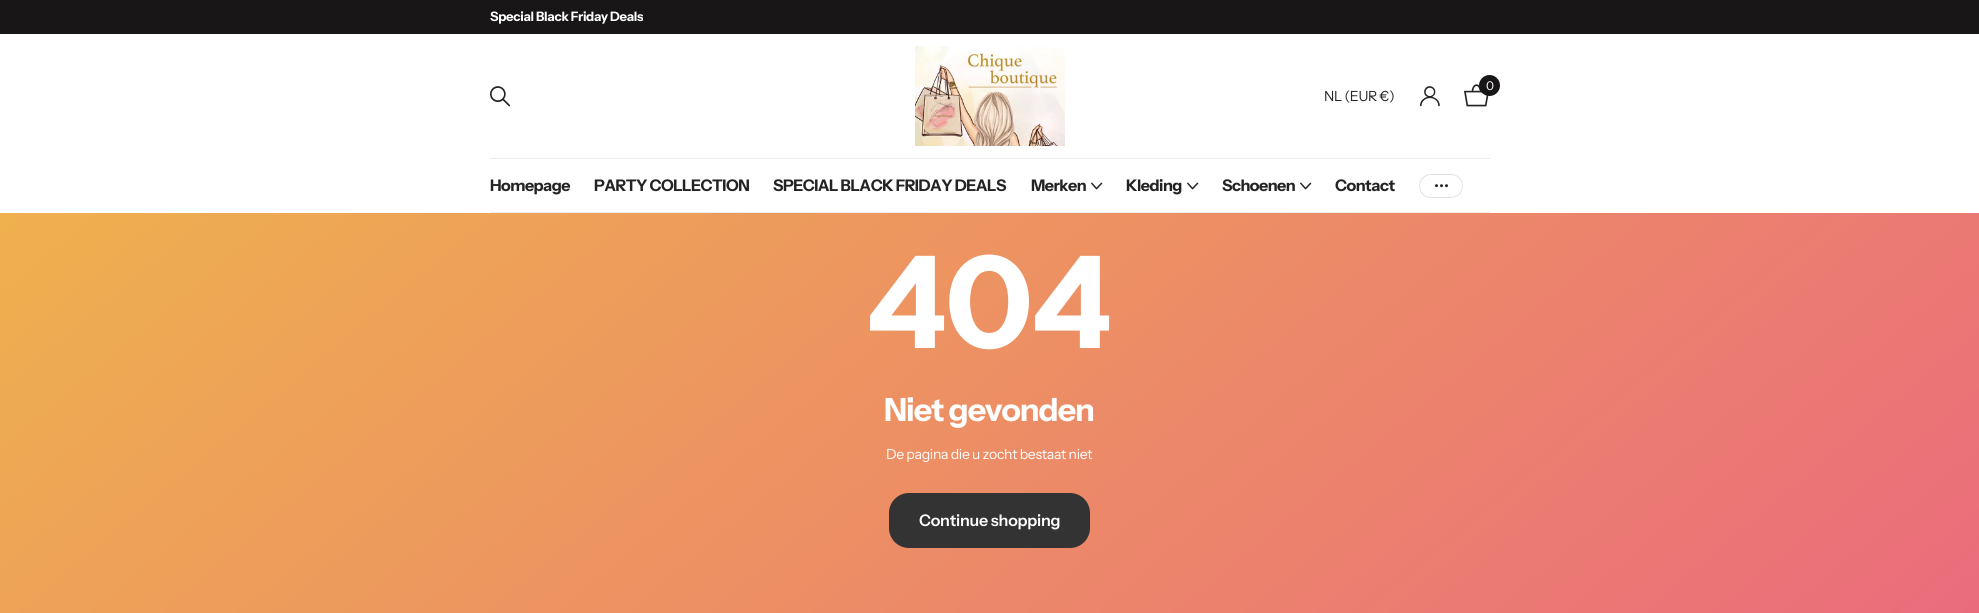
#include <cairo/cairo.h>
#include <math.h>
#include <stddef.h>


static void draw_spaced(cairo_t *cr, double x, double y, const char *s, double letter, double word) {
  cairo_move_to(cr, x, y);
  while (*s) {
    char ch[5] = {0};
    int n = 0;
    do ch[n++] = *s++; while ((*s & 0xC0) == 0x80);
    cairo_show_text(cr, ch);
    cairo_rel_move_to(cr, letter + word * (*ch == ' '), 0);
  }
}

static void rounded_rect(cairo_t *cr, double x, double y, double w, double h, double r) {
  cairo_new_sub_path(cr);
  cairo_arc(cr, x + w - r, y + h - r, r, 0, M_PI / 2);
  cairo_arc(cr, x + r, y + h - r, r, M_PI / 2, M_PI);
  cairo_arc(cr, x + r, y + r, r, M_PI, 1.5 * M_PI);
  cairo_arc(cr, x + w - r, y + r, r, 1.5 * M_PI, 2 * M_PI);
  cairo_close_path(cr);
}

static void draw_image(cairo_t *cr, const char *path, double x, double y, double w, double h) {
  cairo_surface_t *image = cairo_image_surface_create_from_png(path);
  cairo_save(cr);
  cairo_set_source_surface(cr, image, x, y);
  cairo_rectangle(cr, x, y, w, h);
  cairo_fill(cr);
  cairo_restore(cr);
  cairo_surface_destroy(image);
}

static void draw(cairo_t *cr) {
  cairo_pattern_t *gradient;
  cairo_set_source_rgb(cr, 1, 1, 1);
  cairo_paint(cr);
  cairo_set_source_rgb(cr, 24 / 255.0, 22 / 255.0, 22 / 255.0);
  cairo_rectangle(cr, 0, 0, 1979, 34);
  cairo_fill(cr);
  draw_image(cr, "images/1.png", 490, 86, 20, 21);
  draw_image(cr, "images/2.png", 915, 46, 150, 100);
  draw_image(cr, "images/3.png", 1420, 86, 20, 21);
  draw_image(cr, "images/4.png", 1464, 84, 25, 23);
  cairo_arc(cr, 1489.5, 85.5, 10.5, 0, 2 * M_PI);
  cairo_fill(cr);
  cairo_set_source_rgb(cr, 237 / 255.0, 237 / 255.0, 237 / 255.0);
  cairo_rectangle(cr, 490, 158, 1000, 1);
  cairo_fill(cr);
  cairo_rectangle(cr, 490, 212, 1000, 1);
  cairo_fill(cr);
  draw_image(cr, "images/5.png", 1091, 182, 12, 8);
  draw_image(cr, "images/5.png", 1187, 182, 12, 8);
  draw_image(cr, "images/5.png", 1300, 182, 12, 8);
  rounded_rect(cr, 1419.5, 174.5, 43, 23, 11.5);
  cairo_set_source_rgb(cr, 226 / 255.0, 226 / 255.0, 226 / 255.0);
  cairo_set_line_width(cr, 1);
  cairo_stroke(cr);
  draw_image(cr, "images/6.png", 1435, 184, 13, 4);
  gradient = cairo_pattern_create_linear(1803, 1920, 176, -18);
  cairo_pattern_add_color_stop_rgba(gradient, 0.04, 232 / 255.0, 74 / 255.0, 147 / 255.0, 1);
  cairo_pattern_add_color_stop_rgba(gradient, 1, 239 / 255.0, 179 / 255.0, 76 / 255.0, 1);
  cairo_set_source(cr, gradient);
  cairo_pattern_destroy(gradient);
  cairo_rectangle(cr, 0, 213, 1979, 400);
  cairo_fill(cr);
  cairo_set_source_rgb(cr, 51 / 255.0, 51 / 255.0, 51 / 255.0);
  rounded_rect(cr, 889, 493, 201, 55, 20);
  cairo_fill(cr);
  cairo_save(cr);
  cairo_rectangle(cr, 490, 6, 153, 23);
  cairo_clip(cr);
  cairo_select_font_face(cr, "Instrument Sans", CAIRO_FONT_SLANT_NORMAL, CAIRO_FONT_WEIGHT_BOLD);
  cairo_set_font_size(cr, 13);
  cairo_set_source_rgb(cr, 1, 1, 1);
  draw_spaced(cr, 490, 21, "Special Black Friday Deals", -0.3, 0);
  cairo_restore(cr);
  cairo_select_font_face(cr, "Instrument Sans", CAIRO_FONT_SLANT_NORMAL, CAIRO_FONT_WEIGHT_NORMAL);
  cairo_set_font_size(cr, 14);
  cairo_set_source_rgb(cr, 35 / 255.0, 35 / 255.0, 35 / 255.0);
  draw_spaced(cr, 1324, 101, "NL (EUR €)", -0.3, 0);
  cairo_set_font_size(cr, 12);
  cairo_set_source_rgb(cr, 1, 1, 1);
  cairo_move_to(cr, 1486, 90);
  cairo_show_text(cr, "0");
  cairo_select_font_face(cr, "Instrument Sans", CAIRO_FONT_SLANT_NORMAL, CAIRO_FONT_WEIGHT_BOLD);
  cairo_set_font_size(cr, 16);
  cairo_set_source_rgb(cr, 35 / 255.0, 35 / 255.0, 35 / 255.0);
  draw_spaced(cr, 490, 191, "Homepage", -0.5, 0);
  draw_spaced(cr, 594, 191, "PARTY COLLECTION", -0.5, 0);
  draw_spaced(cr, 773, 191, "SPECIAL BLACK FRIDAY DEALS", -0.5, 0);
  draw_spaced(cr, 1031, 191, "Merken", -0.5, 0);
  draw_spaced(cr, 1126, 191, "Kleding", -0.5, 0);
  draw_spaced(cr, 1222, 191, "Schoenen", -0.5, 0);
  draw_spaced(cr, 1335, 191, "Contact", -0.5, 0);
  cairo_set_font_size(cr, 128);
  cairo_set_source_rgb(cr, 1, 1, 1);
  draw_spaced(cr, 867, 348, "404", -1, 0);
  cairo_set_font_size(cr, 32);
  draw_spaced(cr, 884, 421, "Niet gevonden", -1, 0);
  cairo_select_font_face(cr, "Instrument Sans", CAIRO_FONT_SLANT_NORMAL, CAIRO_FONT_WEIGHT_NORMAL);
  cairo_set_font_size(cr, 14);
  draw_spaced(cr, 886, 459, "De pagina die u zocht bestaat niet", -0.3, 0);
  cairo_select_font_face(cr, "Instrument Sans SemiBold", CAIRO_FONT_SLANT_NORMAL, CAIRO_FONT_WEIGHT_NORMAL);
  cairo_set_font_size(cr, 16);
  draw_spaced(cr, 919, 526, "Continue shopping", -0.2, 0);
}

int main(void) {
  cairo_surface_t *surface = cairo_image_surface_create(CAIRO_FORMAT_RGB24, 1979, 613);
  cairo_t *cr = cairo_create(surface);
  cairo_font_options_t *options = cairo_font_options_create();
  cairo_font_options_set_hint_metrics(options, CAIRO_HINT_METRICS_OFF);
  cairo_font_options_set_hint_style(options, CAIRO_HINT_STYLE_NONE);
  cairo_set_font_options(cr, options);
  cairo_set_miter_limit(cr, 4);
  draw(cr);
  cairo_surface_write_to_png(surface, "out.png");
  cairo_font_options_destroy(options);
  cairo_destroy(cr);
  cairo_surface_destroy(surface);
  return 0;
}
